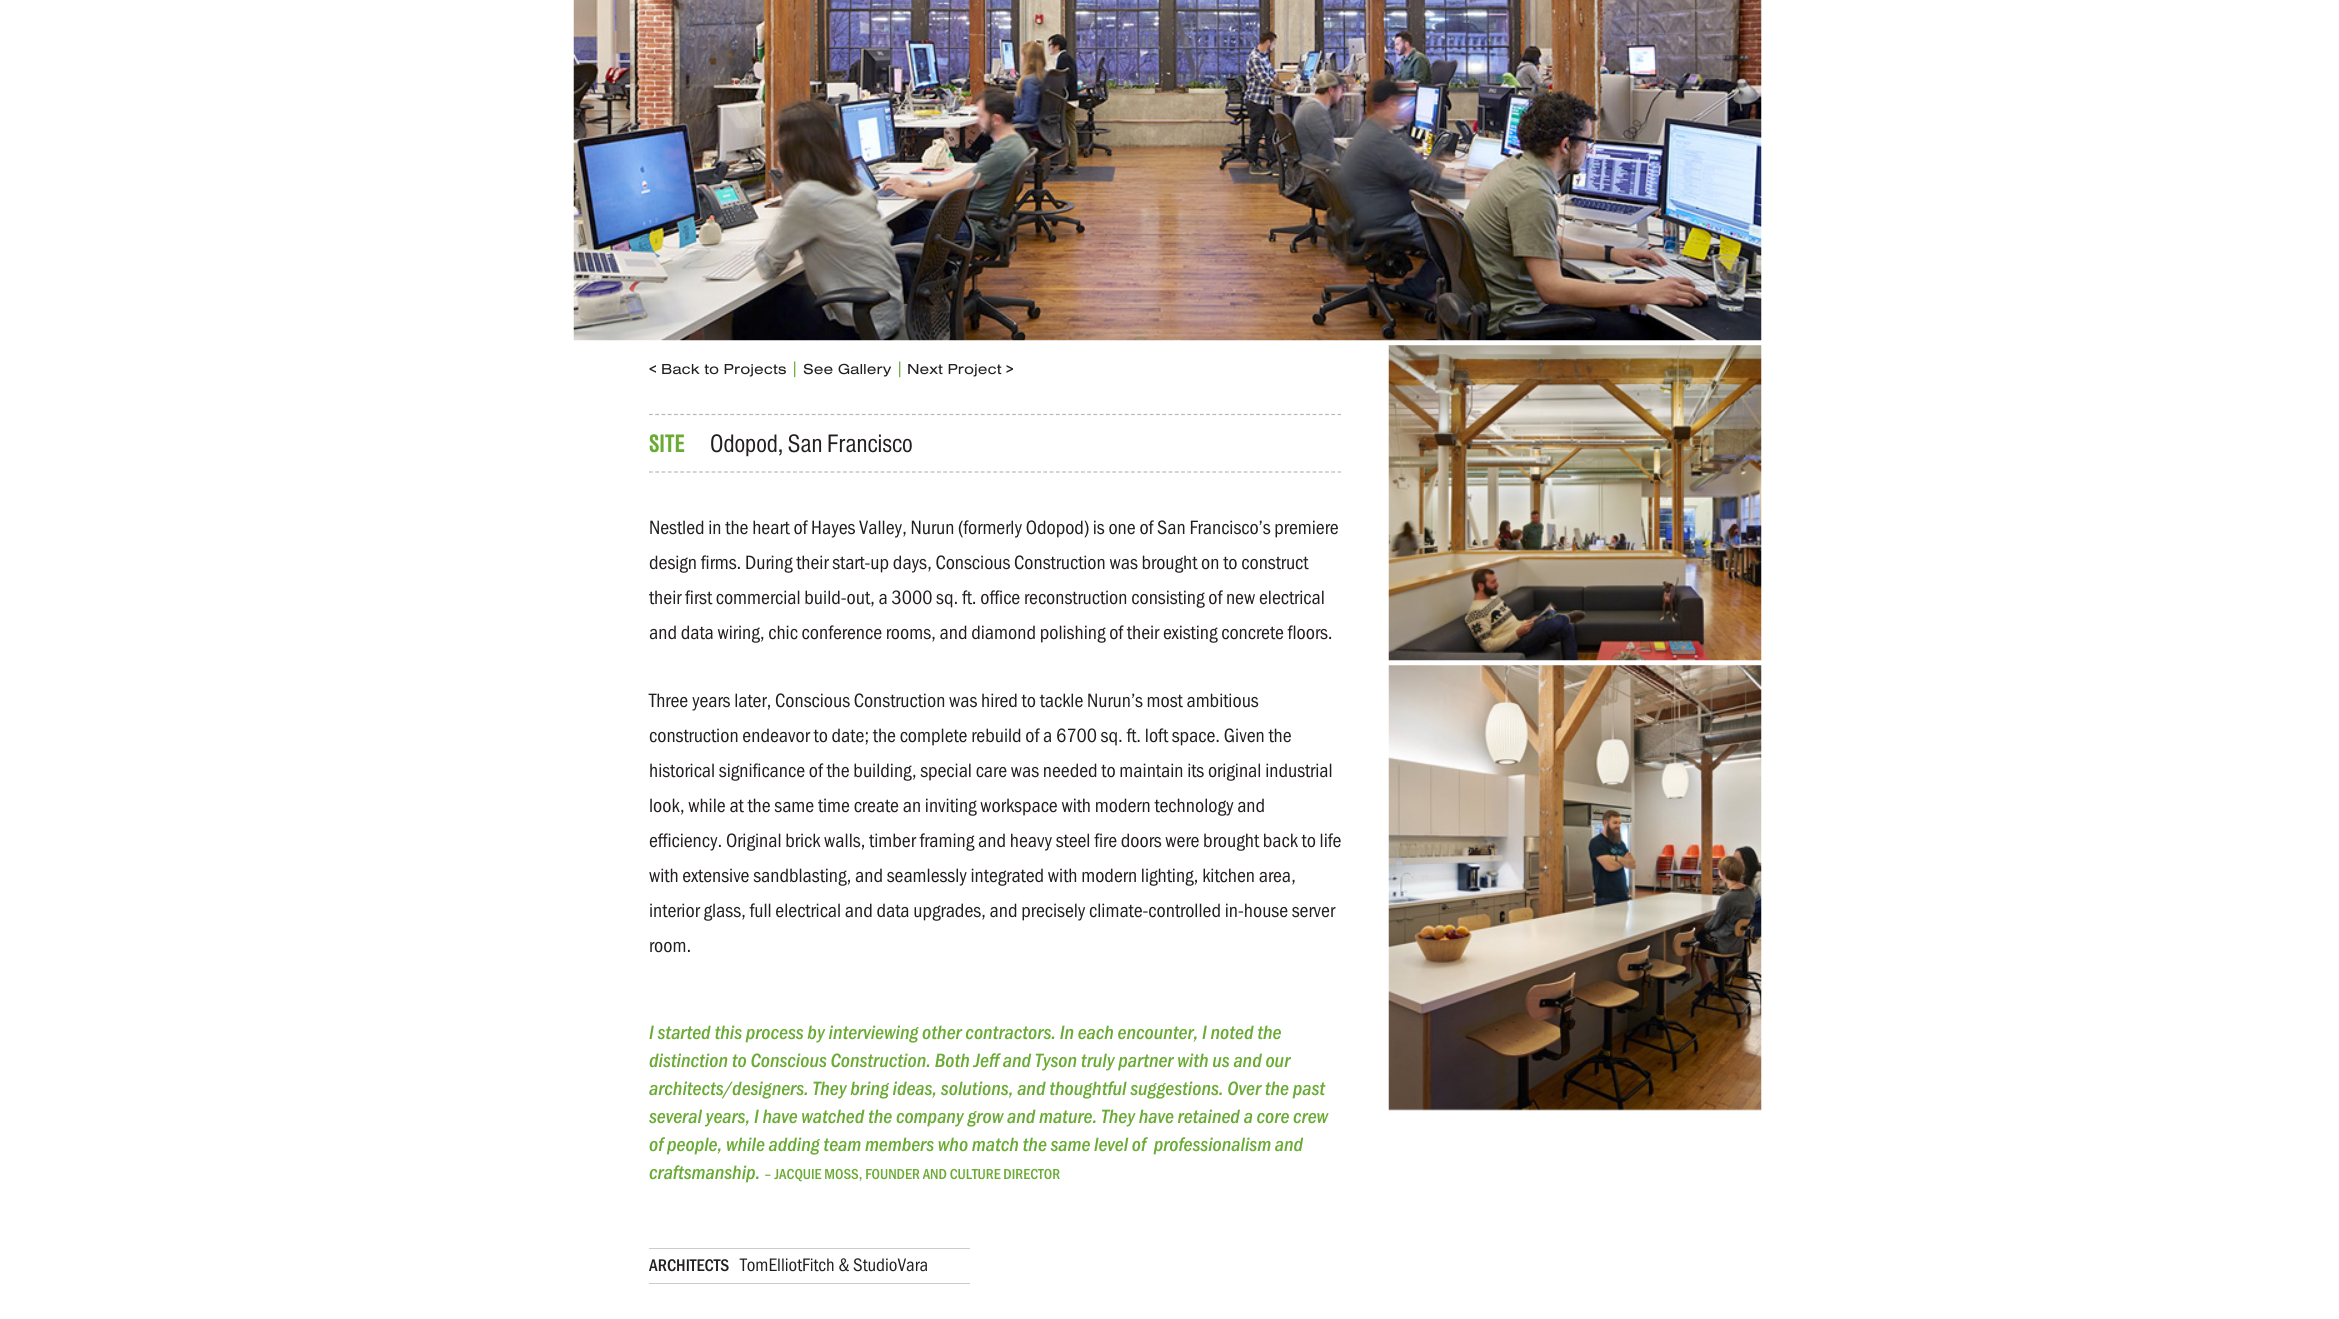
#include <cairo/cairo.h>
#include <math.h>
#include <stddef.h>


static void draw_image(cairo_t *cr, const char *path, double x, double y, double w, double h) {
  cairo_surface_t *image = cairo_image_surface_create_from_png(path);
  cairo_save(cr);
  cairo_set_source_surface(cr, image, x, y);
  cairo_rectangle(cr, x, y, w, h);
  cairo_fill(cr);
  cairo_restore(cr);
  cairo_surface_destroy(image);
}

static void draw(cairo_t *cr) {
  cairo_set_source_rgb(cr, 1, 1, 1);
  cairo_paint(cr);
  draw_image(cr, "images/1.png", 573, 0, 1189, 341);
  cairo_new_path(cr);
  cairo_move_to(cr, 649, 414.5);
  cairo_line_to(cr, 1341, 414.5);
  cairo_set_source_rgb(cr, 183 / 255.0, 184 / 255.0, 180 / 255.0);
  cairo_set_line_width(cr, 1.2);
  cairo_set_dash(cr, (double[]){3.75, 2.51}, 2, 0);
  cairo_stroke(cr);
  cairo_new_path(cr);
  cairo_move_to(cr, 649, 472);
  cairo_line_to(cr, 1341, 472);
  cairo_stroke(cr);
  cairo_set_source_rgb(cr, 204 / 255.0, 204 / 255.0, 204 / 255.0);
  cairo_rectangle(cr, 649, 1248, 321, 1);
  cairo_fill(cr);
  cairo_rectangle(cr, 649, 1283, 321, 1);
  cairo_fill(cr);
  draw_image(cr, "images/2.png", 1388, 345, 374, 316);
  draw_image(cr, "images/3.png", 1388, 665, 374, 446);
  cairo_select_font_face(cr, "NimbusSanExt", CAIRO_FONT_SLANT_NORMAL, CAIRO_FONT_WEIGHT_NORMAL);
  cairo_set_font_size(cr, 15);
  cairo_set_source_rgb(cr, 35 / 255.0, 31 / 255.0, 32 / 255.0);
  cairo_move_to(cr, 649, 374);
  cairo_show_text(cr, "< Back to Projects");
  cairo_select_font_face(cr, "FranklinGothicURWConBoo", CAIRO_FONT_SLANT_NORMAL, CAIRO_FONT_WEIGHT_NORMAL);
  cairo_set_font_size(cr, 18.75);
  cairo_set_source_rgb(cr, 106 / 255.0, 171 / 255.0, 53 / 255.0);
  cairo_move_to(cr, 790, 374);
  cairo_show_text(cr, "|");
  cairo_select_font_face(cr, "NimbusSanExt", CAIRO_FONT_SLANT_NORMAL, CAIRO_FONT_WEIGHT_NORMAL);
  cairo_set_font_size(cr, 15);
  cairo_set_source_rgb(cr, 35 / 255.0, 31 / 255.0, 32 / 255.0);
  cairo_move_to(cr, 803, 374);
  cairo_show_text(cr, "See Gallery");
  cairo_select_font_face(cr, "FranklinGothicURWConBoo", CAIRO_FONT_SLANT_NORMAL, CAIRO_FONT_WEIGHT_NORMAL);
  cairo_set_font_size(cr, 18.75);
  cairo_set_source_rgb(cr, 106 / 255.0, 171 / 255.0, 53 / 255.0);
  cairo_move_to(cr, 895, 374);
  cairo_show_text(cr, "|");
  cairo_select_font_face(cr, "NimbusSanExt", CAIRO_FONT_SLANT_NORMAL, CAIRO_FONT_WEIGHT_NORMAL);
  cairo_set_font_size(cr, 15);
  cairo_set_source_rgb(cr, 35 / 255.0, 31 / 255.0, 32 / 255.0);
  cairo_move_to(cr, 907, 374);
  cairo_show_text(cr, "Next Project >");
  cairo_select_font_face(cr, "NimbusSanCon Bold", CAIRO_FONT_SLANT_NORMAL, CAIRO_FONT_WEIGHT_BOLD);
  cairo_set_font_size(cr, 26.25);
  cairo_set_source_rgb(cr, 106 / 255.0, 171 / 255.0, 53 / 255.0);
  cairo_move_to(cr, 649, 452);
  cairo_show_text(cr, "SITE");
  cairo_select_font_face(cr, "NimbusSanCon", CAIRO_FONT_SLANT_NORMAL, CAIRO_FONT_WEIGHT_NORMAL);
  cairo_set_source_rgb(cr, 35 / 255.0, 31 / 255.0, 32 / 255.0);
  cairo_move_to(cr, 710, 452);
  cairo_show_text(cr, "Odopod, San Francisco");
  cairo_select_font_face(cr, "FranklinGothicURWConBoo", CAIRO_FONT_SLANT_NORMAL, CAIRO_FONT_WEIGHT_NORMAL);
  cairo_set_font_size(cr, 20);
  cairo_move_to(cr, 649, 534);
  cairo_show_text(cr, "Nestled in the heart of Hayes Valley, Nurun (formerly Odopod) is one of San Francisco’s premiere");
  cairo_move_to(cr, 649, 569);
  cairo_show_text(cr, "design firms. During their start-up days, Conscious Construction was brought on to construct");
  cairo_move_to(cr, 649, 604);
  cairo_show_text(cr, "their first commercial build-out, a 3000 sq. ft. office reconstruction consisting of new electrical");
  cairo_move_to(cr, 649, 639);
  cairo_show_text(cr, "and data wiring, chic conference rooms, and diamond polishing of their existing concrete floors.");
  cairo_move_to(cr, 649, 707);
  cairo_show_text(cr, "Three years later, Conscious Construction was hired to tackle Nurun’s most ambitious");
  cairo_move_to(cr, 649, 742);
  cairo_show_text(cr, "construction endeavor to date; the complete rebuild of a 6700 sq. ft. loft space. Given the");
  cairo_move_to(cr, 649, 777);
  cairo_show_text(cr, "historical significance of the building, special care was needed to maintain its original industrial");
  cairo_move_to(cr, 649, 812);
  cairo_show_text(cr, "look, while at the same time create an inviting workspace with modern technology and");
  cairo_move_to(cr, 649, 847);
  cairo_show_text(cr, "efficiency. Original brick walls, timber framing and heavy steel fire doors were brought back to life");
  cairo_move_to(cr, 649, 882);
  cairo_show_text(cr, "with extensive sandblasting, and seamlessly integrated with modern lighting, kitchen area,");
  cairo_move_to(cr, 649, 917);
  cairo_show_text(cr, "interior glass, full electrical and data upgrades, and precisely climate-controlled in-house server");
  cairo_move_to(cr, 649, 952);
  cairo_show_text(cr, "room.");
  cairo_select_font_face(cr, "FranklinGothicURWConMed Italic", CAIRO_FONT_SLANT_ITALIC, CAIRO_FONT_WEIGHT_NORMAL);
  cairo_set_source_rgb(cr, 106 / 255.0, 171 / 255.0, 53 / 255.0);
  cairo_move_to(cr, 649, 1039);
  cairo_show_text(cr, "I started this process by interviewing other contractors. In each encounter, I noted the");
  cairo_move_to(cr, 649, 1067);
  cairo_show_text(cr, "distinction to Conscious Construction. Both Jeff and Tyson truly partner with us and our");
  cairo_move_to(cr, 649, 1095);
  cairo_show_text(cr, "architects/designers. They bring ideas, solutions, and thoughtful suggestions. Over the past");
  cairo_move_to(cr, 649, 1123);
  cairo_show_text(cr, "several years, I have watched the company grow and mature. They have retained a core crew");
  cairo_move_to(cr, 649, 1151);
  cairo_show_text(cr, "of people, while adding team members who match the same level of  professionalism and");
  cairo_move_to(cr, 649, 1179);
  cairo_show_text(cr, "craftsmanship.");
  cairo_select_font_face(cr, "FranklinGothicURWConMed", CAIRO_FONT_SLANT_NORMAL, CAIRO_FONT_WEIGHT_NORMAL);
  cairo_set_font_size(cr, 15);
  cairo_move_to(cr, 764, 1179);
  cairo_show_text(cr, "– JACQUIE MOSS, FOUNDER AND CULTURE DIRECTOR");
  cairo_set_font_size(cr, 17.5);
  cairo_set_source_rgb(cr, 35 / 255.0, 31 / 255.0, 32 / 255.0);
  cairo_move_to(cr, 649, 1271);
  cairo_show_text(cr, "ARCHITECTS");
  cairo_select_font_face(cr, "FranklinGothicURWConBoo", CAIRO_FONT_SLANT_NORMAL, CAIRO_FONT_WEIGHT_NORMAL);
  cairo_set_font_size(cr, 18.75);
  cairo_move_to(cr, 740, 1271);
  cairo_show_text(cr, "TomElliotFitch & StudioVara");
}

int main(void) {
  cairo_surface_t *surface = cairo_image_surface_create(CAIRO_FORMAT_RGB24, 2339, 1319);
  cairo_t *cr = cairo_create(surface);
  cairo_font_options_t *options = cairo_font_options_create();
  cairo_font_options_set_hint_metrics(options, CAIRO_HINT_METRICS_OFF);
  cairo_font_options_set_hint_style(options, CAIRO_HINT_STYLE_NONE);
  cairo_set_font_options(cr, options);
  cairo_set_miter_limit(cr, 4);
  draw(cr);
  cairo_surface_write_to_png(surface, "out.png");
  cairo_font_options_destroy(options);
  cairo_destroy(cr);
  cairo_surface_destroy(surface);
  return 0;
}
